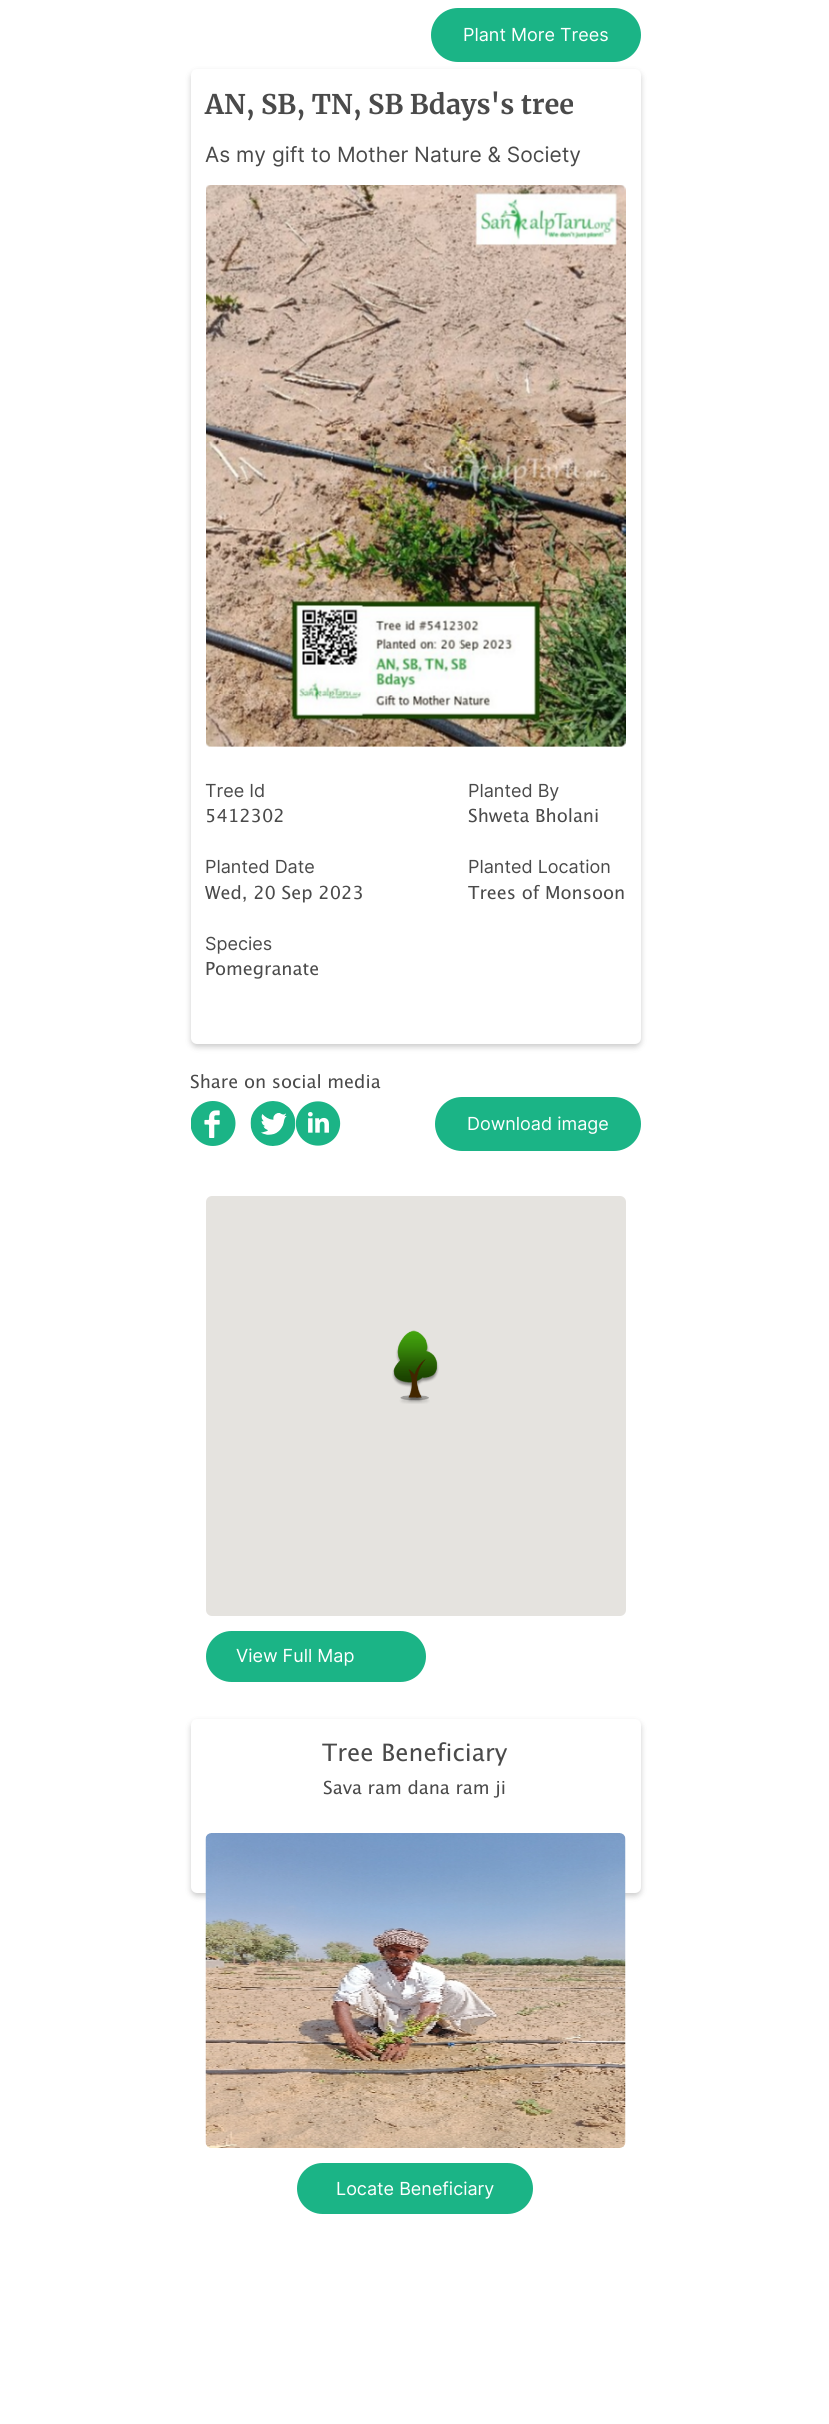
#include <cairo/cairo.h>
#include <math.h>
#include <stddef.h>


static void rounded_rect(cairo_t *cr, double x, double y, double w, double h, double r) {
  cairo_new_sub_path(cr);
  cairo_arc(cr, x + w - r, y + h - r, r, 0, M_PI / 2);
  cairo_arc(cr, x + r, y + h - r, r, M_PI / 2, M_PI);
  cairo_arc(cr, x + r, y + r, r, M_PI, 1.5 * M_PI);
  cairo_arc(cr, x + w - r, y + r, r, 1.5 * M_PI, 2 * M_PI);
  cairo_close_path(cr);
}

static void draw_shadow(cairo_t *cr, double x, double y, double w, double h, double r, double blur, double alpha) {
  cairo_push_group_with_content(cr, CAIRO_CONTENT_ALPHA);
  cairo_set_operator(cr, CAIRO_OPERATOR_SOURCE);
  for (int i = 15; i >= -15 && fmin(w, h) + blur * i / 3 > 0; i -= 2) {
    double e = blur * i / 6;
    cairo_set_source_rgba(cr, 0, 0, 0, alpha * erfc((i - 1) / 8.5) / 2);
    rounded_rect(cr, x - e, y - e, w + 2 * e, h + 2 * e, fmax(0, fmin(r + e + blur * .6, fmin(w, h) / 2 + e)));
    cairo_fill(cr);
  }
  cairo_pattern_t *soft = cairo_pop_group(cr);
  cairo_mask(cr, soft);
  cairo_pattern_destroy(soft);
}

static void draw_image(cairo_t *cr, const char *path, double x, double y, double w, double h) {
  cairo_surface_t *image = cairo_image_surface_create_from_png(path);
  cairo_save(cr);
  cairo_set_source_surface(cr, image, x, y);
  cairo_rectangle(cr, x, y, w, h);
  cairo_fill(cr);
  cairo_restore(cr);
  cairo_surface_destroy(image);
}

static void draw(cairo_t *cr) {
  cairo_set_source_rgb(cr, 1, 1, 1);
  cairo_paint(cr);
  cairo_set_source_rgb(cr, 27 / 255.0, 180 / 255.0, 134 / 255.0);
  rounded_rect(cr, 432, 9, 208, 52, 26);
  cairo_fill_preserve(cr);
  cairo_stroke(cr);
  cairo_set_source_rgb(cr, 0, 0, 0);
  draw_shadow(cr, 191, 72, 450, 975, 6, 3, 0.2);
  cairo_set_source_rgb(cr, 1, 1, 1);
  rounded_rect(cr, 191, 69, 450, 975, 6);
  cairo_fill(cr);
  draw_image(cr, "images/1.png", 206, 185, 420, 562);
  draw_image(cr, "images/2.png", 191, 1101, 45, 45);
  draw_image(cr, "images/3.png", 250, 1101, 46, 45);
  draw_image(cr, "images/4.png", 296, 1101, 45, 45);
  cairo_set_source_rgb(cr, 27 / 255.0, 180 / 255.0, 134 / 255.0);
  rounded_rect(cr, 436, 1098, 204, 52, 26);
  cairo_fill_preserve(cr);
  cairo_stroke(cr);
  cairo_set_source_rgb(cr, 229 / 255.0, 227 / 255.0, 223 / 255.0);
  rounded_rect(cr, 206, 1196, 420, 420, 6);
  cairo_fill(cr);
  draw_image(cr, "images/5.png", 392, 1330, 47, 74);
  cairo_set_source_rgb(cr, 27 / 255.0, 180 / 255.0, 134 / 255.0);
  rounded_rect(cr, 207, 1632, 218, 49, 24.5);
  cairo_fill_preserve(cr);
  cairo_stroke(cr);
  cairo_set_source_rgb(cr, 0, 0, 0);
  draw_shadow(cr, 191, 1722, 450, 174, 6, 3, 0.2);
  cairo_set_source_rgb(cr, 1, 1, 1);
  rounded_rect(cr, 191, 1719, 450, 174, 6);
  cairo_fill(cr);
  draw_image(cr, "images/6.png", 205, 1833, 421, 315);
  cairo_set_source_rgb(cr, 27 / 255.0, 180 / 255.0, 134 / 255.0);
  rounded_rect(cr, 298, 2164, 234, 49, 24.5);
  cairo_fill_preserve(cr);
  cairo_stroke(cr);
  cairo_select_font_face(cr, "Inter", CAIRO_FONT_SLANT_NORMAL, CAIRO_FONT_WEIGHT_NORMAL);
  cairo_set_font_size(cr, 18);
  cairo_set_source_rgb(cr, 1, 1, 1);
  cairo_move_to(cr, 463, 41);
  cairo_show_text(cr, "Plant More Trees");
  cairo_select_font_face(cr, "Merriweather", CAIRO_FONT_SLANT_NORMAL, CAIRO_FONT_WEIGHT_BOLD);
  cairo_set_font_size(cr, 27);
  cairo_set_source_rgb(cr, 74 / 255.0, 74 / 255.0, 74 / 255.0);
  cairo_move_to(cr, 205, 114);
  cairo_show_text(cr, "AN, SB, TN, SB Bdays's tree");
  cairo_select_font_face(cr, "Inter", CAIRO_FONT_SLANT_NORMAL, CAIRO_FONT_WEIGHT_NORMAL);
  cairo_set_font_size(cr, 21);
  cairo_move_to(cr, 205, 162);
  cairo_show_text(cr, "As my gift to Mother Nature & Society");
  cairo_set_font_size(cr, 18);
  cairo_move_to(cr, 205, 797);
  cairo_show_text(cr, "Tree Id");
  cairo_select_font_face(cr, "Lucida Grande", CAIRO_FONT_SLANT_NORMAL, CAIRO_FONT_WEIGHT_NORMAL);
  cairo_move_to(cr, 205, 822);
  cairo_show_text(cr, "5412302");
  cairo_select_font_face(cr, "Inter", CAIRO_FONT_SLANT_NORMAL, CAIRO_FONT_WEIGHT_NORMAL);
  cairo_move_to(cr, 205, 873);
  cairo_show_text(cr, "Planted Date");
  cairo_select_font_face(cr, "Lucida Grande", CAIRO_FONT_SLANT_NORMAL, CAIRO_FONT_WEIGHT_NORMAL);
  cairo_move_to(cr, 205, 899);
  cairo_show_text(cr, "Wed, 20 Sep 2023");
  cairo_select_font_face(cr, "Inter", CAIRO_FONT_SLANT_NORMAL, CAIRO_FONT_WEIGHT_NORMAL);
  cairo_move_to(cr, 205, 950);
  cairo_show_text(cr, "Species");
  cairo_select_font_face(cr, "Lucida Grande", CAIRO_FONT_SLANT_NORMAL, CAIRO_FONT_WEIGHT_NORMAL);
  cairo_move_to(cr, 205, 975);
  cairo_show_text(cr, "Pomegranate");
  cairo_select_font_face(cr, "Inter", CAIRO_FONT_SLANT_NORMAL, CAIRO_FONT_WEIGHT_NORMAL);
  cairo_move_to(cr, 468, 797);
  cairo_show_text(cr, "Planted By");
  cairo_select_font_face(cr, "Lucida Grande", CAIRO_FONT_SLANT_NORMAL, CAIRO_FONT_WEIGHT_NORMAL);
  cairo_move_to(cr, 468, 822);
  cairo_show_text(cr, "Shweta Bholani");
  cairo_select_font_face(cr, "Inter", CAIRO_FONT_SLANT_NORMAL, CAIRO_FONT_WEIGHT_NORMAL);
  cairo_move_to(cr, 468, 873);
  cairo_show_text(cr, "Planted Location");
  cairo_select_font_face(cr, "Lucida Grande", CAIRO_FONT_SLANT_NORMAL, CAIRO_FONT_WEIGHT_NORMAL);
  cairo_move_to(cr, 468, 899);
  cairo_show_text(cr, "Trees of Monsoon");
  cairo_move_to(cr, 190, 1088);
  cairo_show_text(cr, "Share on social media");
  cairo_select_font_face(cr, "Inter", CAIRO_FONT_SLANT_NORMAL, CAIRO_FONT_WEIGHT_NORMAL);
  cairo_set_source_rgb(cr, 1, 1, 1);
  cairo_move_to(cr, 467, 1130);
  cairo_show_text(cr, "Download image");
  cairo_move_to(cr, 236, 1662);
  cairo_show_text(cr, "View Full Map");
  cairo_select_font_face(cr, "Lucida Grande", CAIRO_FONT_SLANT_NORMAL, CAIRO_FONT_WEIGHT_NORMAL);
  cairo_set_font_size(cr, 24);
  cairo_set_source_rgb(cr, 74 / 255.0, 74 / 255.0, 74 / 255.0);
  cairo_move_to(cr, 322, 1761);
  cairo_show_text(cr, "Tree Beneficiary");
  cairo_set_font_size(cr, 18);
  cairo_move_to(cr, 323, 1794);
  cairo_show_text(cr, "Sava ram dana ram ji");
  cairo_select_font_face(cr, "Inter", CAIRO_FONT_SLANT_NORMAL, CAIRO_FONT_WEIGHT_NORMAL);
  cairo_set_source_rgb(cr, 1, 1, 1);
  cairo_move_to(cr, 336, 2195);
  cairo_show_text(cr, "Locate Beneficiary");
}

int main(void) {
  cairo_surface_t *surface = cairo_image_surface_create(CAIRO_FORMAT_RGB24, 829, 2424);
  cairo_t *cr = cairo_create(surface);
  cairo_font_options_t *options = cairo_font_options_create();
  cairo_font_options_set_hint_metrics(options, CAIRO_HINT_METRICS_OFF);
  cairo_font_options_set_hint_style(options, CAIRO_HINT_STYLE_NONE);
  cairo_set_font_options(cr, options);
  cairo_set_miter_limit(cr, 4);
  draw(cr);
  cairo_surface_write_to_png(surface, "out.png");
  cairo_font_options_destroy(options);
  cairo_destroy(cr);
  cairo_surface_destroy(surface);
  return 0;
}
